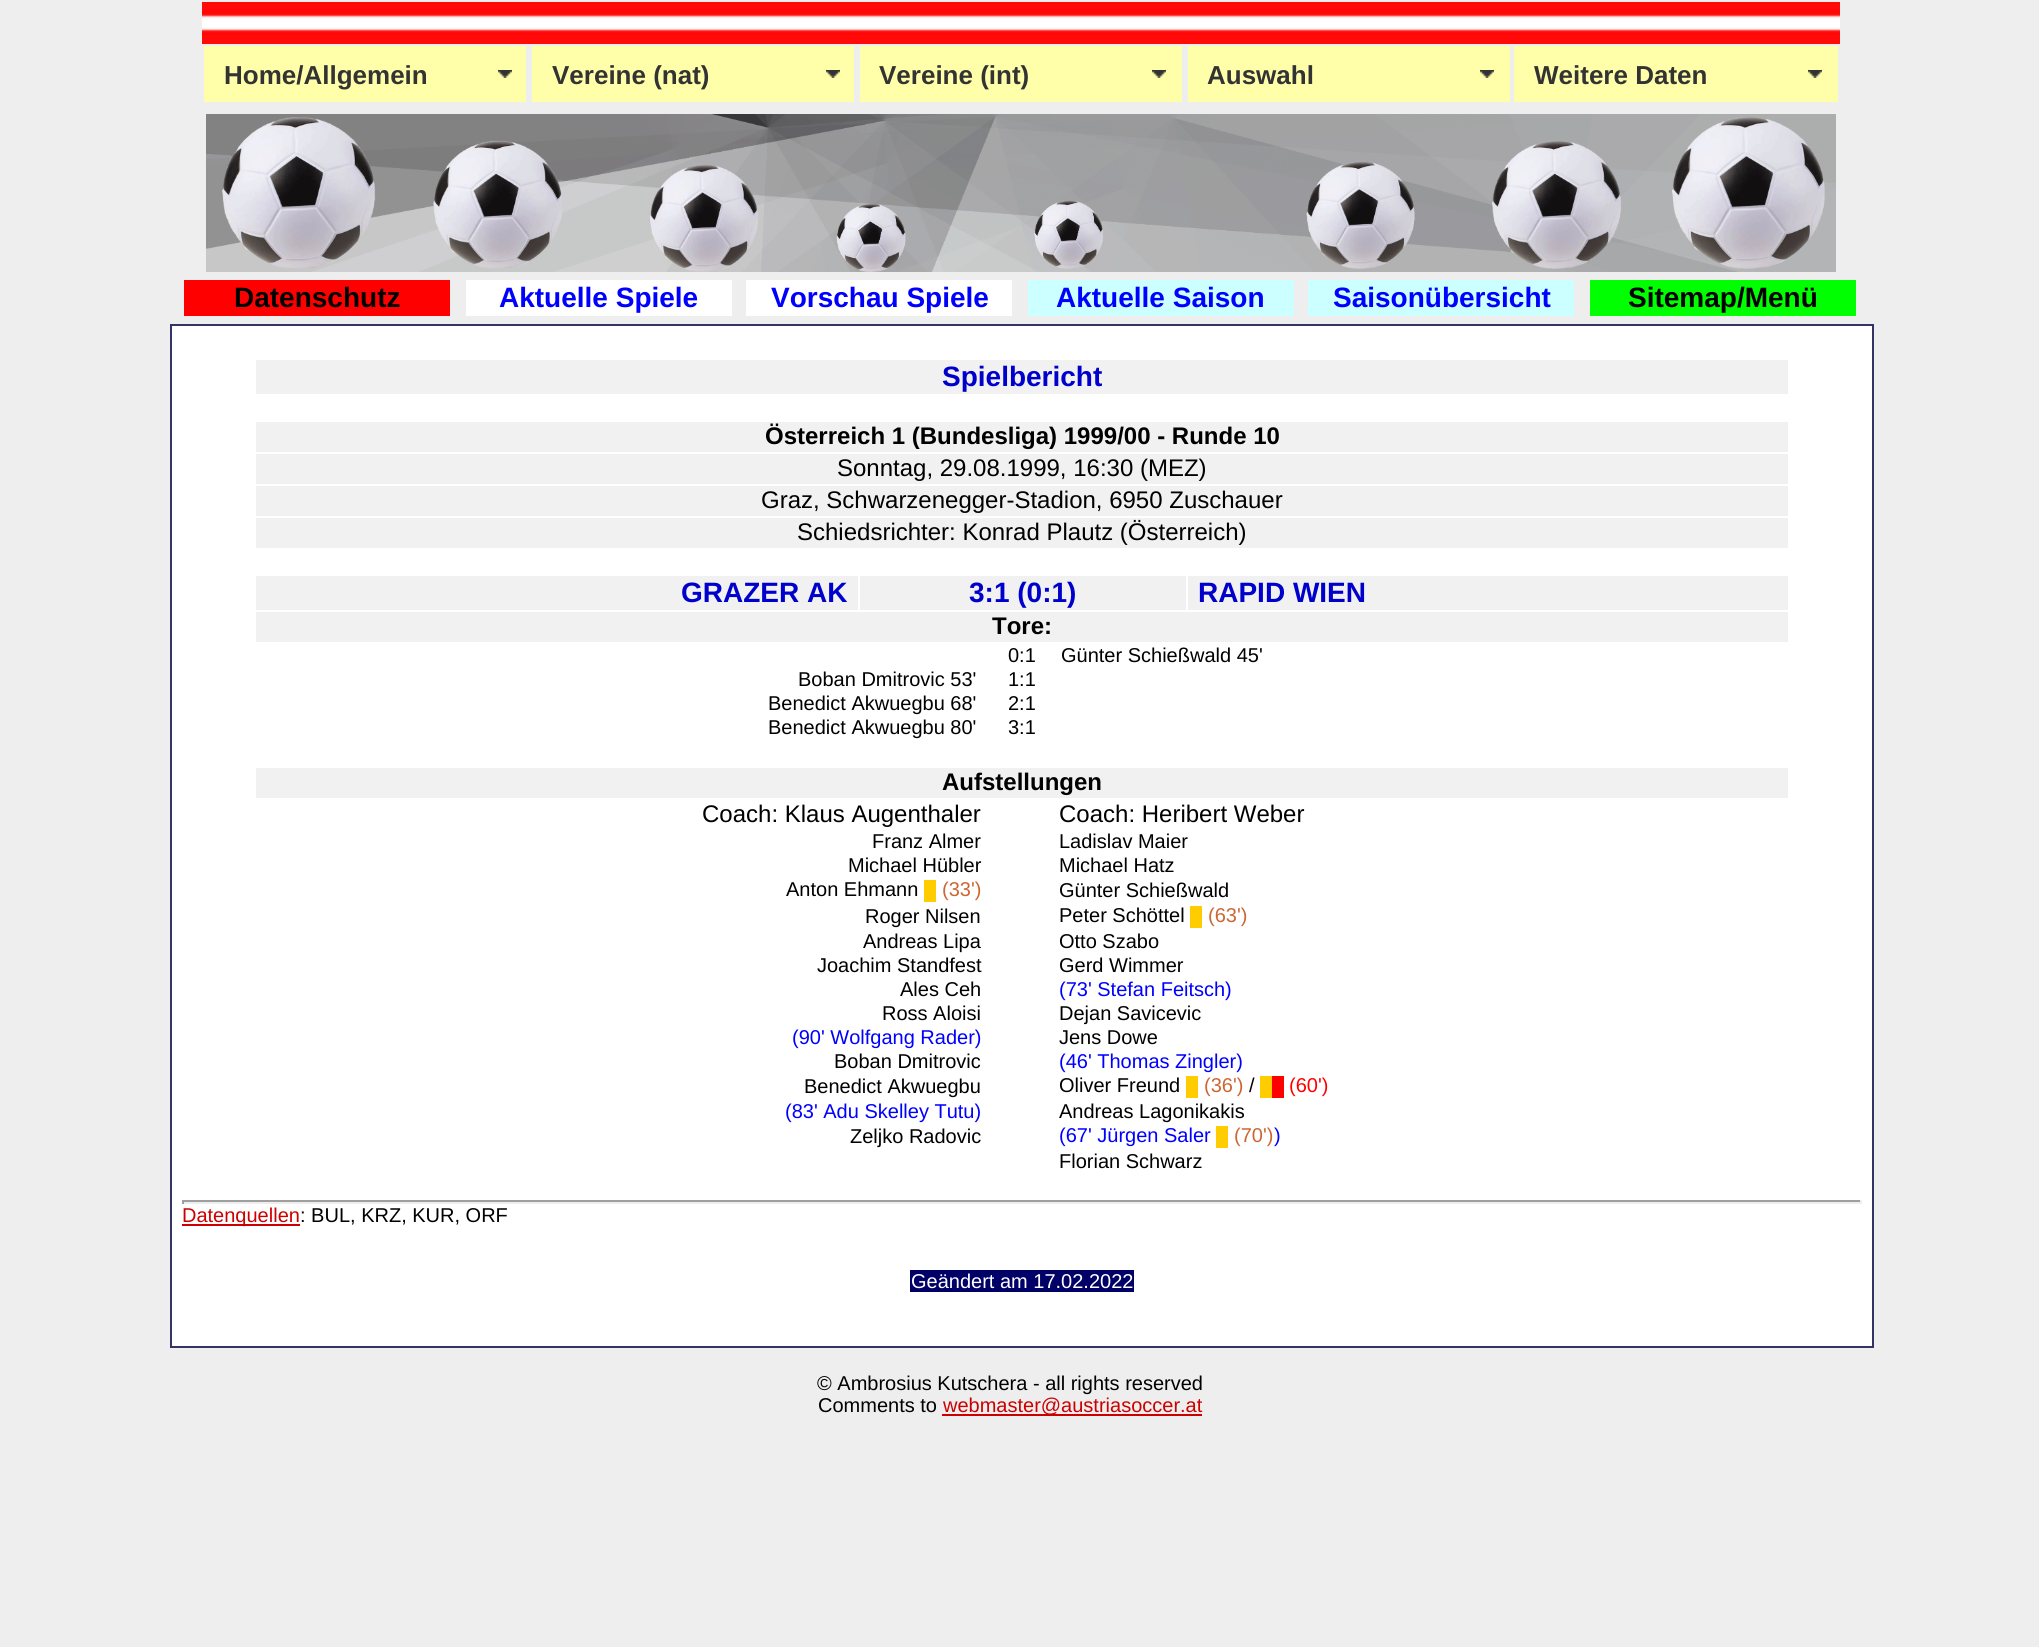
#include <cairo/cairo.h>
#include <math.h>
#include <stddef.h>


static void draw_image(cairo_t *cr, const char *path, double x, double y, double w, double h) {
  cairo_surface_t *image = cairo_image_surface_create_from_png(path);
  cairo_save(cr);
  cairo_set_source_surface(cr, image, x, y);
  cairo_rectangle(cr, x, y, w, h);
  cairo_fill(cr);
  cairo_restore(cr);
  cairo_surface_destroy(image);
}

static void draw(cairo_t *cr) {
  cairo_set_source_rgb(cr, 238 / 255.0, 238 / 255.0, 238 / 255.0);
  cairo_paint(cr);
  draw_image(cr, "images/1.png", 202, 2, 1638, 42);
  cairo_set_source_rgb(cr, 1, 1, 170 / 255.0);
  cairo_rectangle(cr, 204, 46, 322, 56);
  cairo_fill(cr);
  draw_image(cr, "images/2.png", 498, 70, 14, 8);
  cairo_rectangle(cr, 532, 46, 322, 56);
  cairo_fill(cr);
  draw_image(cr, "images/2.png", 826, 70, 14, 8);
  cairo_rectangle(cr, 860, 46, 322, 56);
  cairo_fill(cr);
  draw_image(cr, "images/2.png", 1152, 70, 14, 8);
  cairo_rectangle(cr, 1188, 46, 322, 56);
  cairo_fill(cr);
  draw_image(cr, "images/2.png", 1480, 70, 14, 8);
  cairo_rectangle(cr, 1514, 46, 324, 56);
  cairo_fill(cr);
  draw_image(cr, "images/2.png", 1808, 70, 14, 8);
  draw_image(cr, "images/3.png", 206, 114, 1630, 158);
  cairo_set_source_rgb(cr, 1, 0, 0);
  cairo_rectangle(cr, 184, 280, 266, 36);
  cairo_fill(cr);
  cairo_set_source_rgb(cr, 1, 1, 1);
  cairo_rectangle(cr, 466, 280, 266, 36);
  cairo_fill(cr);
  cairo_rectangle(cr, 746, 280, 266, 36);
  cairo_fill(cr);
  cairo_set_source_rgb(cr, 204 / 255.0, 1, 1);
  cairo_rectangle(cr, 1028, 280, 266, 36);
  cairo_fill(cr);
  cairo_rectangle(cr, 1308, 280, 266, 36);
  cairo_fill(cr);
  cairo_set_source_rgb(cr, 0, 1, 0);
  cairo_rectangle(cr, 1590, 280, 266, 36);
  cairo_fill(cr);
  cairo_set_source_rgb(cr, 1, 1, 1);
  cairo_rectangle(cr, 171, 325, 1702, 1022);
  cairo_fill_preserve(cr);
  cairo_set_source_rgb(cr, 51 / 255.0, 51 / 255.0, 102 / 255.0);
  cairo_stroke(cr);
  cairo_set_source_rgb(cr, 241 / 255.0, 241 / 255.0, 242 / 255.0);
  cairo_rectangle(cr, 256, 360, 1532, 34);
  cairo_fill(cr);
  cairo_rectangle(cr, 256, 422, 1532, 30);
  cairo_fill(cr);
  cairo_rectangle(cr, 256, 454, 1532, 30);
  cairo_fill(cr);
  cairo_rectangle(cr, 256, 486, 1532, 30);
  cairo_fill(cr);
  cairo_rectangle(cr, 256, 518, 1532, 30);
  cairo_fill(cr);
  cairo_rectangle(cr, 256, 576, 602, 34);
  cairo_fill(cr);
  cairo_rectangle(cr, 860, 576, 326, 34);
  cairo_fill(cr);
  cairo_rectangle(cr, 1188, 576, 600, 34);
  cairo_fill(cr);
  cairo_rectangle(cr, 256, 612, 1532, 30);
  cairo_fill(cr);
  cairo_rectangle(cr, 256, 768, 1532, 30);
  cairo_fill(cr);
  cairo_set_source_rgb(cr, 1, 204 / 255.0, 0);
  cairo_rectangle(cr, 924, 880, 12, 22);
  cairo_fill(cr);
  cairo_rectangle(cr, 1190, 906, 12, 22);
  cairo_fill(cr);
  cairo_rectangle(cr, 1186, 1076, 12, 22);
  cairo_fill(cr);
  cairo_rectangle(cr, 1260, 1076, 12, 22);
  cairo_fill(cr);
  cairo_set_source_rgb(cr, 1, 0, 0);
  cairo_rectangle(cr, 1272, 1076, 12, 22);
  cairo_fill(cr);
  cairo_set_source_rgb(cr, 1, 204 / 255.0, 0);
  cairo_rectangle(cr, 1216, 1126, 12, 22);
  cairo_fill(cr);
  cairo_set_source_rgb(cr, 159 / 255.0, 159 / 255.0, 159 / 255.0);
  cairo_rectangle(cr, 182, 1200, 1680, 2);
  cairo_fill(cr);
  cairo_set_source_rgb(cr, 238 / 255.0, 238 / 255.0, 238 / 255.0);
  cairo_rectangle(cr, 1860, 1200, 2, 4);
  cairo_fill(cr);
  cairo_rectangle(cr, 182, 1202, 1680, 2);
  cairo_fill(cr);
  cairo_set_source_rgb(cr, 159 / 255.0, 159 / 255.0, 159 / 255.0);
  cairo_rectangle(cr, 182, 1200, 2, 4);
  cairo_fill(cr);
  cairo_set_source_rgb(cr, 204 / 255.0, 0, 0);
  cairo_rectangle(cr, 182, 1224, 118, 2);
  cairo_fill(cr);
  cairo_set_source_rgb(cr, 0, 0, 102 / 255.0);
  cairo_rectangle(cr, 910, 1270, 224, 22);
  cairo_fill(cr);
  cairo_set_source_rgb(cr, 204 / 255.0, 0, 0);
  cairo_rectangle(cr, 942, 1414, 260, 2);
  cairo_fill(cr);
  cairo_select_font_face(cr, "Liberation Sans", CAIRO_FONT_SLANT_NORMAL, CAIRO_FONT_WEIGHT_BOLD);
  cairo_set_font_size(cr, 26);
  cairo_set_source_rgb(cr, 51 / 255.0, 51 / 255.0, 51 / 255.0);
  cairo_move_to(cr, 224, 84);
  cairo_show_text(cr, "Home/Allgemein");
  cairo_move_to(cr, 552, 84);
  cairo_show_text(cr, "Vereine (nat)");
  cairo_move_to(cr, 879, 84);
  cairo_show_text(cr, "Vereine (int)");
  cairo_move_to(cr, 1207, 84);
  cairo_show_text(cr, "Auswahl");
  cairo_move_to(cr, 1534, 84);
  cairo_show_text(cr, "Weitere Daten");
  cairo_set_font_size(cr, 28);
  cairo_set_source_rgb(cr, 0, 0, 0);
  cairo_move_to(cr, 234, 307);
  cairo_show_text(cr, "Datenschutz");
  cairo_set_source_rgb(cr, 0, 0, 1);
  cairo_move_to(cr, 499, 307);
  cairo_show_text(cr, "Aktuelle Spiele");
  cairo_move_to(cr, 771, 307);
  cairo_show_text(cr, "Vorschau Spiele");
  cairo_move_to(cr, 1056, 307);
  cairo_show_text(cr, "Aktuelle Saison");
  cairo_move_to(cr, 1333, 307);
  cairo_show_text(cr, "Saisonübersicht");
  cairo_set_source_rgb(cr, 0, 0, 0);
  cairo_move_to(cr, 1628, 307);
  cairo_show_text(cr, "Sitemap/Menü");
  cairo_set_source_rgb(cr, 0, 0, 204 / 255.0);
  cairo_move_to(cr, 942, 386);
  cairo_show_text(cr, "Spielbericht");
  cairo_set_font_size(cr, 24);
  cairo_set_source_rgb(cr, 0, 0, 0);
  cairo_move_to(cr, 765, 444);
  cairo_show_text(cr, "Österreich 1 (Bundesliga) 1999/00 - Runde 10");
  cairo_select_font_face(cr, "Liberation Sans", CAIRO_FONT_SLANT_NORMAL, CAIRO_FONT_WEIGHT_NORMAL);
  cairo_move_to(cr, 837, 476);
  cairo_show_text(cr, "Sonntag, 29.08.1999, 16:30 (MEZ)");
  cairo_move_to(cr, 761, 508);
  cairo_show_text(cr, "Graz, Schwarzenegger-Stadion, 6950 Zuschauer");
  cairo_move_to(cr, 797, 540);
  cairo_show_text(cr, "Schiedsrichter: Konrad Plautz (Österreich)");
  cairo_select_font_face(cr, "Liberation Sans", CAIRO_FONT_SLANT_NORMAL, CAIRO_FONT_WEIGHT_BOLD);
  cairo_set_font_size(cr, 28);
  cairo_set_source_rgb(cr, 0, 0, 204 / 255.0);
  cairo_move_to(cr, 681, 602);
  cairo_show_text(cr, "GRAZER AK");
  cairo_move_to(cr, 969, 602);
  cairo_show_text(cr, "3:1 (0:1)");
  cairo_move_to(cr, 1198, 602);
  cairo_show_text(cr, "RAPID WIEN");
  cairo_set_font_size(cr, 24);
  cairo_set_source_rgb(cr, 0, 0, 0);
  cairo_move_to(cr, 992, 634);
  cairo_show_text(cr, "Tore:");
  cairo_select_font_face(cr, "Liberation Sans", CAIRO_FONT_SLANT_NORMAL, CAIRO_FONT_WEIGHT_NORMAL);
  cairo_set_font_size(cr, 20);
  cairo_move_to(cr, 1008, 662);
  cairo_show_text(cr, "0:1");
  cairo_move_to(cr, 1061, 662);
  cairo_show_text(cr, "Günter Schießwald 45'");
  cairo_move_to(cr, 798, 686);
  cairo_show_text(cr, "Boban Dmitrovic 53'");
  cairo_move_to(cr, 1008, 686);
  cairo_show_text(cr, "1:1");
  cairo_move_to(cr, 768, 710);
  cairo_show_text(cr, "Benedict Akwuegbu 68'");
  cairo_move_to(cr, 1008, 710);
  cairo_show_text(cr, "2:1");
  cairo_move_to(cr, 768, 734);
  cairo_show_text(cr, "Benedict Akwuegbu 80'");
  cairo_move_to(cr, 1008, 734);
  cairo_show_text(cr, "3:1");
  cairo_select_font_face(cr, "Liberation Sans", CAIRO_FONT_SLANT_NORMAL, CAIRO_FONT_WEIGHT_BOLD);
  cairo_set_font_size(cr, 24);
  cairo_move_to(cr, 942, 790);
  cairo_show_text(cr, "Aufstellungen");
  cairo_select_font_face(cr, "Liberation Sans", CAIRO_FONT_SLANT_NORMAL, CAIRO_FONT_WEIGHT_NORMAL);
  cairo_move_to(cr, 702, 822);
  cairo_show_text(cr, "Coach: Klaus Augenthaler");
  cairo_move_to(cr, 1059, 822);
  cairo_show_text(cr, "Coach: Heribert Weber");
  cairo_set_font_size(cr, 20);
  cairo_move_to(cr, 872, 848);
  cairo_show_text(cr, "Franz Almer");
  cairo_move_to(cr, 1059, 848);
  cairo_show_text(cr, "Ladislav Maier");
  cairo_move_to(cr, 848, 872);
  cairo_show_text(cr, "Michael Hübler");
  cairo_move_to(cr, 1059, 872);
  cairo_show_text(cr, "Michael Hatz");
  cairo_move_to(cr, 786, 896);
  cairo_show_text(cr, "Anton Ehmann");
  cairo_set_source_rgb(cr, 204 / 255.0, 102 / 255.0, 51 / 255.0);
  cairo_move_to(cr, 942, 896);
  cairo_show_text(cr, "(33')");
  cairo_set_source_rgb(cr, 0, 0, 0);
  cairo_move_to(cr, 1059, 897);
  cairo_show_text(cr, "Günter Schießwald");
  cairo_move_to(cr, 865, 923);
  cairo_show_text(cr, "Roger Nilsen");
  cairo_move_to(cr, 1059, 922);
  cairo_show_text(cr, "Peter Schöttel");
  cairo_set_source_rgb(cr, 204 / 255.0, 102 / 255.0, 51 / 255.0);
  cairo_move_to(cr, 1208, 922);
  cairo_show_text(cr, "(63')");
  cairo_set_source_rgb(cr, 0, 0, 0);
  cairo_move_to(cr, 863, 948);
  cairo_show_text(cr, "Andreas Lipa");
  cairo_move_to(cr, 1059, 948);
  cairo_show_text(cr, "Otto Szabo");
  cairo_move_to(cr, 817, 972);
  cairo_show_text(cr, "Joachim Standfest");
  cairo_move_to(cr, 1059, 972);
  cairo_show_text(cr, "Gerd Wimmer");
  cairo_move_to(cr, 900, 996);
  cairo_show_text(cr, "Ales Ceh");
  cairo_set_source_rgb(cr, 0, 0, 1);
  cairo_move_to(cr, 1059, 996);
  cairo_show_text(cr, "(73' Stefan Feitsch)");
  cairo_set_source_rgb(cr, 0, 0, 0);
  cairo_move_to(cr, 882, 1020);
  cairo_show_text(cr, "Ross Aloisi");
  cairo_move_to(cr, 1059, 1020);
  cairo_show_text(cr, "Dejan Savicevic");
  cairo_set_source_rgb(cr, 0, 0, 1);
  cairo_move_to(cr, 792, 1044);
  cairo_show_text(cr, "(90' Wolfgang Rader)");
  cairo_set_source_rgb(cr, 0, 0, 0);
  cairo_move_to(cr, 1059, 1044);
  cairo_show_text(cr, "Jens Dowe");
  cairo_move_to(cr, 834, 1068);
  cairo_show_text(cr, "Boban Dmitrovic");
  cairo_set_source_rgb(cr, 0, 0, 1);
  cairo_move_to(cr, 1059, 1068);
  cairo_show_text(cr, "(46' Thomas Zingler)");
  cairo_set_source_rgb(cr, 0, 0, 0);
  cairo_move_to(cr, 804, 1093);
  cairo_show_text(cr, "Benedict Akwuegbu");
  cairo_move_to(cr, 1059, 1092);
  cairo_show_text(cr, "Oliver Freund");
  cairo_set_source_rgb(cr, 204 / 255.0, 102 / 255.0, 51 / 255.0);
  cairo_move_to(cr, 1204, 1092);
  cairo_show_text(cr, "(36')");
  cairo_set_source_rgb(cr, 0, 0, 0);
  cairo_move_to(cr, 1249, 1092);
  cairo_show_text(cr, "/");
  cairo_set_source_rgb(cr, 1, 0, 0);
  cairo_move_to(cr, 1289, 1092);
  cairo_show_text(cr, "(60')");
  cairo_set_source_rgb(cr, 0, 0, 1);
  cairo_move_to(cr, 785, 1118);
  cairo_show_text(cr, "(83' Adu Skelley Tutu)");
  cairo_set_source_rgb(cr, 0, 0, 0);
  cairo_move_to(cr, 1059, 1118);
  cairo_show_text(cr, "Andreas Lagonikakis");
  cairo_move_to(cr, 850, 1143);
  cairo_show_text(cr, "Zeljko Radovic");
  cairo_set_source_rgb(cr, 0, 0, 1);
  cairo_move_to(cr, 1059, 1142);
  cairo_show_text(cr, "(67' Jürgen Saler");
  cairo_set_source_rgb(cr, 204 / 255.0, 102 / 255.0, 51 / 255.0);
  cairo_move_to(cr, 1234, 1142);
  cairo_show_text(cr, "(70')");
  cairo_set_source_rgb(cr, 0, 0, 1);
  cairo_move_to(cr, 1274, 1142);
  cairo_show_text(cr, ")");
  cairo_set_source_rgb(cr, 0, 0, 0);
  cairo_move_to(cr, 1059, 1168);
  cairo_show_text(cr, "Florian Schwarz");
  cairo_set_source_rgb(cr, 204 / 255.0, 0, 0);
  cairo_move_to(cr, 182, 1222);
  cairo_show_text(cr, "Datenquellen");
  cairo_set_source_rgb(cr, 0, 0, 0);
  cairo_move_to(cr, 300, 1222);
  cairo_show_text(cr, ": BUL, KRZ, KUR, ORF");
  cairo_set_source_rgb(cr, 1, 1, 1);
  cairo_move_to(cr, 911, 1288);
  cairo_show_text(cr, "Geändert am 17.02.2022");
  cairo_set_source_rgb(cr, 0, 0, 0);
  cairo_move_to(cr, 817, 1390);
  cairo_show_text(cr, "© Ambrosius Kutschera - all rights reserved");
  cairo_move_to(cr, 818, 1412);
  cairo_show_text(cr, "Comments to");
  cairo_set_source_rgb(cr, 204 / 255.0, 0, 0);
  cairo_move_to(cr, 943, 1412);
  cairo_show_text(cr, "webmaster@austriasoccer.at");
}

int main(void) {
  cairo_surface_t *surface = cairo_image_surface_create(CAIRO_FORMAT_RGB24, 2039, 1647);
  cairo_t *cr = cairo_create(surface);
  cairo_font_options_t *options = cairo_font_options_create();
  cairo_font_options_set_hint_metrics(options, CAIRO_HINT_METRICS_OFF);
  cairo_font_options_set_hint_style(options, CAIRO_HINT_STYLE_NONE);
  cairo_set_font_options(cr, options);
  cairo_set_miter_limit(cr, 4);
  draw(cr);
  cairo_surface_write_to_png(surface, "out.png");
  cairo_font_options_destroy(options);
  cairo_destroy(cr);
  cairo_surface_destroy(surface);
  return 0;
}
